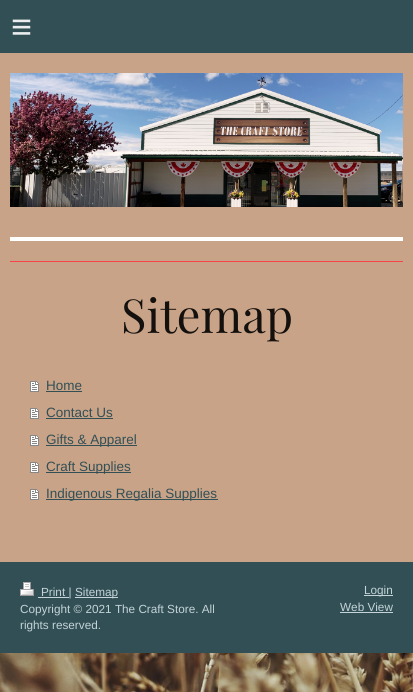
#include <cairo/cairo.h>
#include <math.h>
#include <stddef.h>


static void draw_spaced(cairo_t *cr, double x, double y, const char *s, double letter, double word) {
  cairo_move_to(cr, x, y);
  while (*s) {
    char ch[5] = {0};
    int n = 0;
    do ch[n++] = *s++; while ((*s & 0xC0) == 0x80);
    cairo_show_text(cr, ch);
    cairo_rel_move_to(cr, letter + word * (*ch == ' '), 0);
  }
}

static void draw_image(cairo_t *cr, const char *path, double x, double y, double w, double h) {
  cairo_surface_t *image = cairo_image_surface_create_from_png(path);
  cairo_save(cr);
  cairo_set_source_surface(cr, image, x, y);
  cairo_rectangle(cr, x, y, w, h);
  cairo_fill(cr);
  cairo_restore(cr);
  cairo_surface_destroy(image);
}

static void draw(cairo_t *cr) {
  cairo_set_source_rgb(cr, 1, 1, 1);
  cairo_paint(cr);
  draw_image(cr, "images/1.png", 0, 653, 413, 39);
  cairo_set_source_rgb(cr, 50 / 255.0, 79 / 255.0, 86 / 255.0);
  cairo_rectangle(cr, 0, 0, 413, 53);
  cairo_fill(cr);
  cairo_set_source_rgb(cr, 200 / 255.0, 163 / 255.0, 135 / 255.0);
  cairo_rectangle(cr, 0, 53, 413, 509);
  cairo_fill(cr);
  draw_image(cr, "images/2.png", 10, 73, 393, 134);
  cairo_set_source_rgb(cr, 1, 1, 1);
  cairo_rectangle(cr, 10, 237, 393, 4);
  cairo_fill(cr);
  cairo_set_source_rgb(cr, 247 / 255.0, 68 / 255.0, 72 / 255.0);
  cairo_rectangle(cr, 10, 261, 393, 1);
  cairo_fill(cr);
  draw_image(cr, "images/3.png", 30, 381, 9, 11);
  cairo_set_source_rgb(cr, 50 / 255.0, 79 / 255.0, 86 / 255.0);
  cairo_rectangle(cr, 46, 391, 36, 1);
  cairo_fill(cr);
  draw_image(cr, "images/3.png", 30, 408, 9, 11);
  cairo_rectangle(cr, 46, 418, 67, 1);
  cairo_fill(cr);
  draw_image(cr, "images/3.png", 30, 435, 9, 11);
  cairo_rectangle(cr, 46, 445, 91, 1);
  cairo_fill(cr);
  draw_image(cr, "images/3.png", 30, 462, 9, 11);
  cairo_rectangle(cr, 46, 472, 85, 1);
  cairo_fill(cr);
  draw_image(cr, "images/3.png", 30, 489, 9, 11);
  cairo_rectangle(cr, 46, 499, 172, 1);
  cairo_fill(cr);
  cairo_rectangle(cr, 0, 562, 413, 91);
  cairo_fill(cr);
  draw_image(cr, "images/4.png", 20, 582, 14, 14);
  cairo_set_source_rgb(cr, 196 / 255.0, 212 / 255.0, 216 / 255.0);
  cairo_rectangle(cr, 38, 597, 31, 1);
  cairo_fill(cr);
  cairo_rectangle(cr, 75, 597, 43, 1);
  cairo_fill(cr);
  cairo_rectangle(cr, 364, 595, 29, 1);
  cairo_fill(cr);
  cairo_rectangle(cr, 340, 612, 53, 1);
  cairo_fill(cr);
  cairo_select_font_face(cr, "Liberation Sans", CAIRO_FONT_SLANT_NORMAL, CAIRO_FONT_WEIGHT_NORMAL);
  cairo_set_font_size(cr, 36);
  cairo_set_source_rgb(cr, 235 / 255.0, 237 / 255.0, 238 / 255.0);
  draw_spaced(cr, 11, 39, "≡", 10, 0);
  cairo_select_font_face(cr, "Playfair Display", CAIRO_FONT_SLANT_NORMAL, CAIRO_FONT_WEIGHT_NORMAL);
  cairo_set_font_size(cr, 47);
  cairo_set_source_rgb(cr, 20 / 255.0, 16 / 255.0, 14 / 255.0);
  cairo_move_to(cr, 121, 333);
  cairo_show_text(cr, "Sitemap");
  cairo_select_font_face(cr, "Liberation Sans", CAIRO_FONT_SLANT_NORMAL, CAIRO_FONT_WEIGHT_NORMAL);
  cairo_set_font_size(cr, 13.5);
  cairo_set_source_rgb(cr, 50 / 255.0, 79 / 255.0, 86 / 255.0);
  cairo_move_to(cr, 46, 390);
  cairo_show_text(cr, "Home");
  cairo_move_to(cr, 46, 417);
  cairo_show_text(cr, "Contact Us");
  cairo_move_to(cr, 46, 444);
  cairo_show_text(cr, "Gifts & Apparel");
  cairo_move_to(cr, 46, 471);
  cairo_show_text(cr, "Craft Supplies");
  cairo_move_to(cr, 46, 498);
  cairo_show_text(cr, "Indigenous Regalia Supplies");
  cairo_set_font_size(cr, 11.75);
  cairo_set_source_rgb(cr, 196 / 255.0, 212 / 255.0, 216 / 255.0);
  cairo_move_to(cr, 41, 596);
  cairo_show_text(cr, "Print |");
  cairo_move_to(cr, 75, 596);
  cairo_show_text(cr, "Sitemap");
  cairo_move_to(cr, 20, 613);
  cairo_show_text(cr, "Copyright © 2021 The Craft Store. All");
  cairo_move_to(cr, 20, 629);
  cairo_show_text(cr, "rights reserved.");
  cairo_move_to(cr, 364, 594);
  cairo_show_text(cr, "Login");
  cairo_move_to(cr, 340, 611);
  cairo_show_text(cr, "Web View");
}

int main(void) {
  cairo_surface_t *surface = cairo_image_surface_create(CAIRO_FORMAT_RGB24, 413, 692);
  cairo_t *cr = cairo_create(surface);
  cairo_font_options_t *options = cairo_font_options_create();
  cairo_font_options_set_hint_metrics(options, CAIRO_HINT_METRICS_OFF);
  cairo_font_options_set_hint_style(options, CAIRO_HINT_STYLE_NONE);
  cairo_set_font_options(cr, options);
  cairo_set_miter_limit(cr, 4);
  draw(cr);
  cairo_surface_write_to_png(surface, "out.png");
  cairo_font_options_destroy(options);
  cairo_destroy(cr);
  cairo_surface_destroy(surface);
  return 0;
}
